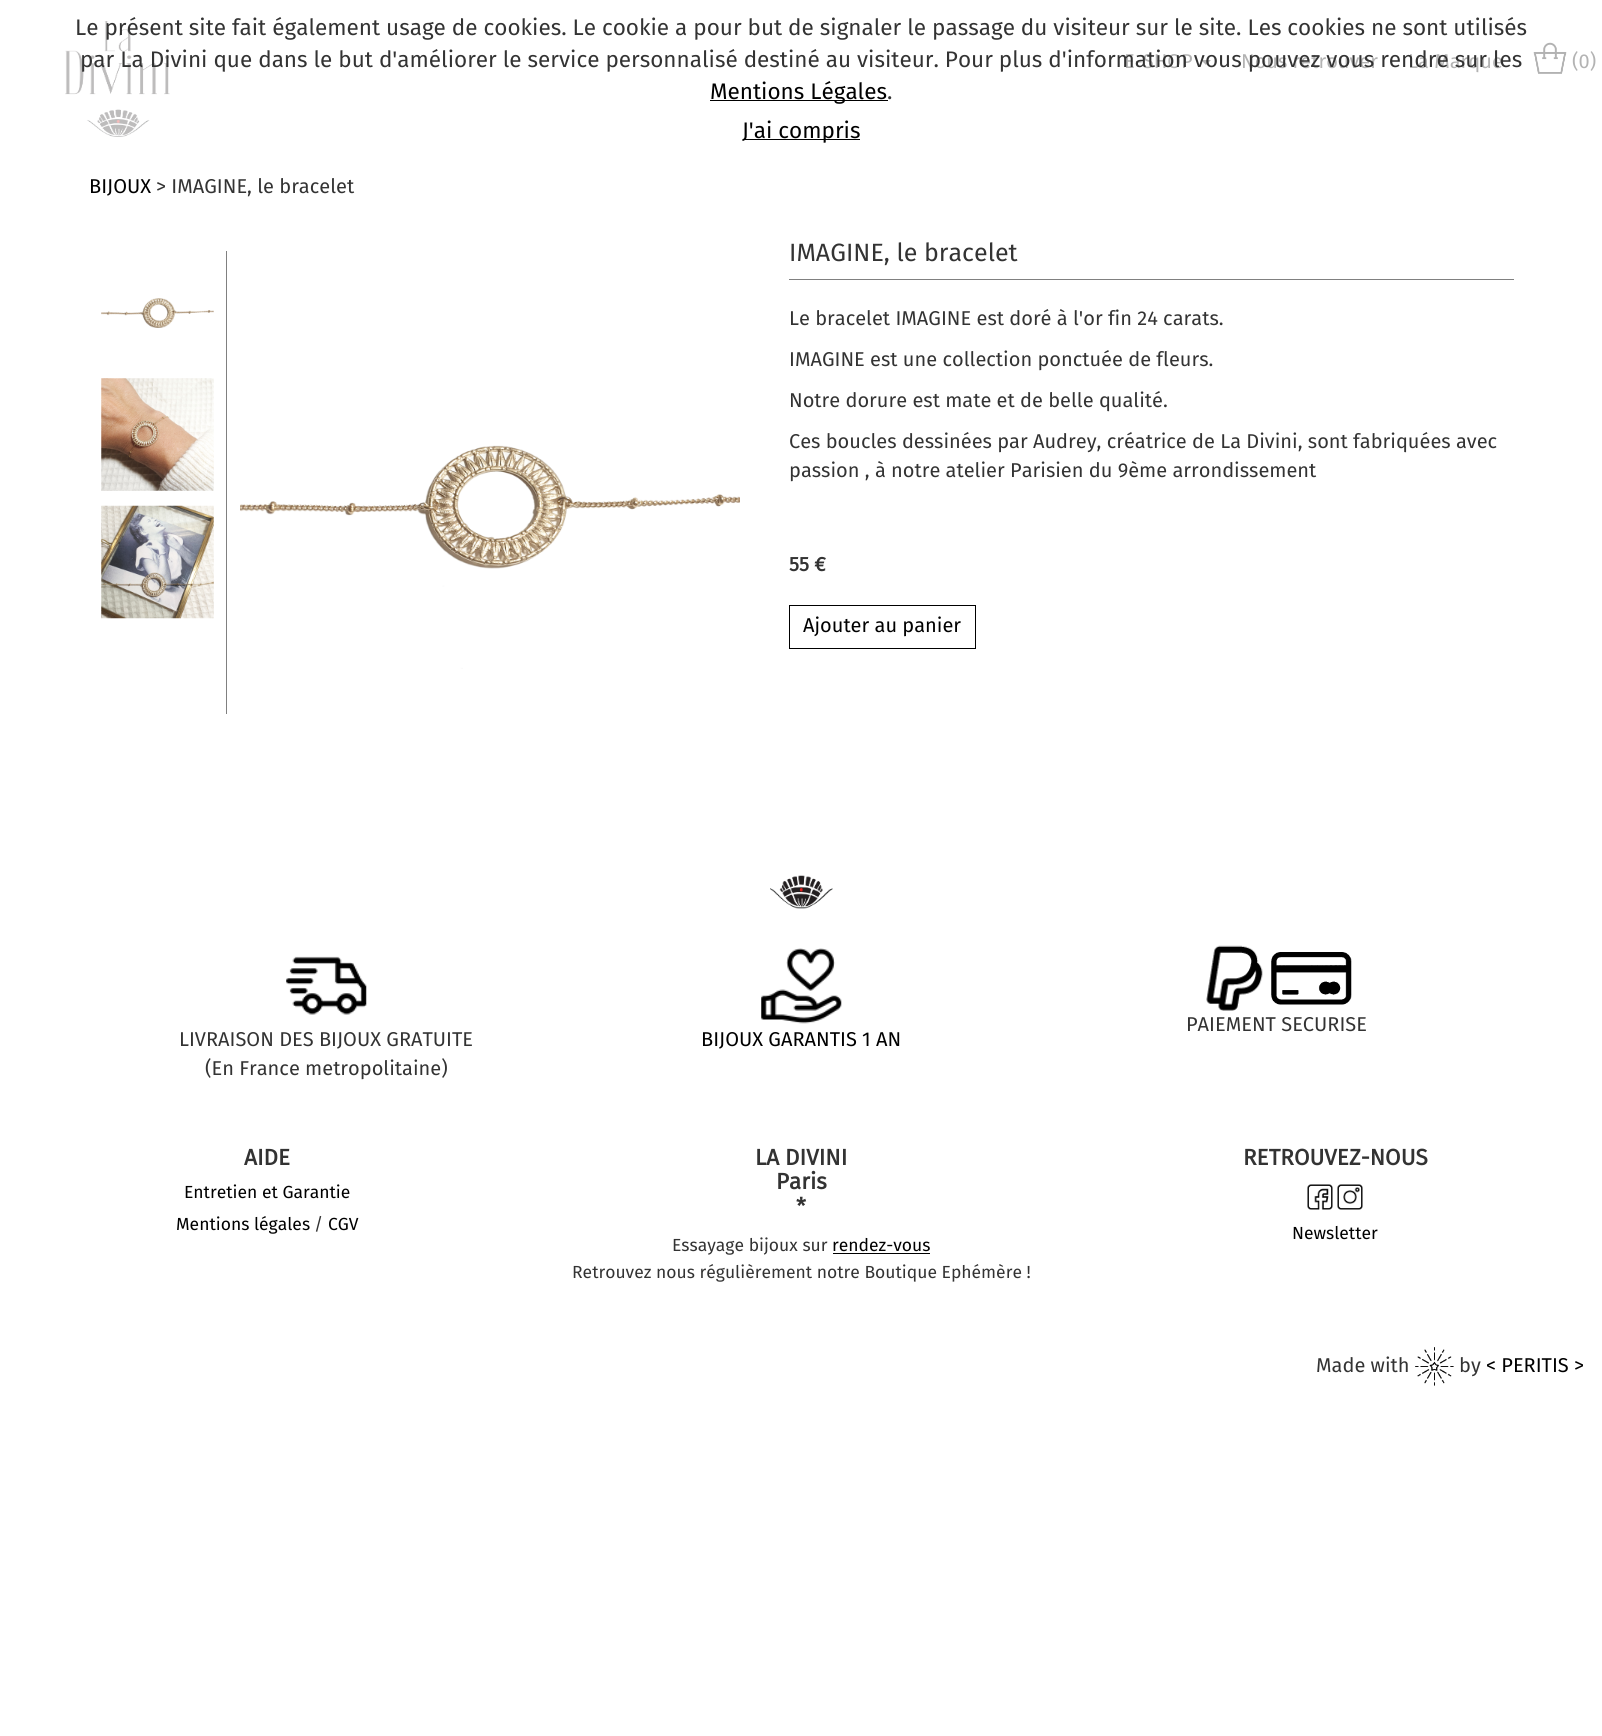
#include <cairo/cairo.h>
#include <math.h>
#include <stddef.h>


static void draw_image(cairo_t *cr, const char *path, double x, double y, double w, double h) {
  cairo_surface_t *image = cairo_image_surface_create_from_png(path);
  cairo_save(cr);
  cairo_set_source_surface(cr, image, x, y);
  cairo_rectangle(cr, x, y, w, h);
  cairo_fill(cr);
  cairo_restore(cr);
  cairo_surface_destroy(image);
}

static void draw(cairo_t *cr) {
  cairo_set_source_rgb(cr, 1, 1, 1);
  cairo_paint(cr);
  cairo_set_source_rgb(cr, 0, 0, 0);
  cairo_rectangle(cr, 710, 100, 178, 1);
  cairo_fill(cr);
  cairo_rectangle(cr, 743, 139, 117, 1);
  cairo_fill(cr);
  draw_image(cr, "images/1.png", 65, 21, 105, 116);
  cairo_set_source_rgb(cr, 179 / 255.0, 179 / 255.0, 179 / 255.0);
  cairo_new_path(cr);
  cairo_move_to(cr, 1201, 60);
  cairo_line_to(cr, 1211, 60);
  cairo_line_to(cr, 1206, 65);
  cairo_close_path(cr);
  cairo_fill(cr);
  draw_image(cr, "images/2.png", 1533, 42, 34, 32);
  draw_image(cr, "images/3.png", 101, 298, 113, 30);
  draw_image(cr, "images/4.png", 101, 378, 113, 113);
  draw_image(cr, "images/5.png", 101, 505, 113, 114);
  cairo_set_source_rgb(cr, 128 / 255.0, 128 / 255.0, 128 / 255.0);
  cairo_rectangle(cr, 226, 251, 1, 463);
  cairo_fill(cr);
  draw_image(cr, "images/6.png", 240, 445, 500, 224);
  cairo_rectangle(cr, 789, 279, 725, 1);
  cairo_fill(cr);
  cairo_rectangle(cr, 789.5, 605.5, 186, 43);
  cairo_set_source_rgb(cr, 0, 0, 0);
  cairo_set_line_width(cr, 1);
  cairo_stroke(cr);
  draw_image(cr, "images/7.png", 770, 875, 63, 34);
  draw_image(cr, "images/8.png", 1206, 945, 57, 66);
  draw_image(cr, "images/9.png", 1271, 952, 81, 53);
  draw_image(cr, "images/10.png", 286, 956, 81, 59);
  draw_image(cr, "images/11.png", 761, 948, 81, 76);
  cairo_rectangle(cr, 833, 1253, 97, 1);
  cairo_fill(cr);
  draw_image(cr, "images/12.png", 1307, 1184, 26, 26);
  draw_image(cr, "images/13.png", 1337, 1184, 26, 26);
  draw_image(cr, "images/14.png", 1415, 1347, 39, 39);
  cairo_select_font_face(cr, "Fira Sans", CAIRO_FONT_SLANT_NORMAL, CAIRO_FONT_WEIGHT_NORMAL);
  cairo_set_font_size(cr, 22.5);
  cairo_set_source_rgb(cr, 51 / 255.0, 51 / 255.0, 51 / 255.0);
  cairo_move_to(cr, 75, 35);
  cairo_show_text(cr, "Le présent site fait également usage de cookies. Le cookie a pour but de signaler le passage du visiteur sur le site. Les cookies ne sont utilisés");
  cairo_set_source_rgb(cr, 0, 0, 0);
  cairo_move_to(cr, 710, 99);
  cairo_show_text(cr, "Mentions Légales");
  cairo_set_source_rgb(cr, 51 / 255.0, 51 / 255.0, 51 / 255.0);
  cairo_move_to(cr, 887, 99);
  cairo_show_text(cr, ".");
  cairo_set_source_rgb(cr, 0, 0, 0);
  cairo_move_to(cr, 742, 138);
  cairo_show_text(cr, "J'ai compris");
  cairo_set_font_size(cr, 20);
  cairo_set_source_rgb(cr, 179 / 255.0, 179 / 255.0, 179 / 255.0);
  cairo_move_to(cr, 1124, 68);
  cairo_show_text(cr, "E-SHOP");
  cairo_move_to(cr, 1241, 68);
  cairo_show_text(cr, "Nous retrouver");
  cairo_move_to(cr, 1408, 68);
  cairo_show_text(cr, "La Marque");
  cairo_set_font_size(cr, 22.5);
  cairo_set_source_rgb(cr, 51 / 255.0, 51 / 255.0, 51 / 255.0);
  cairo_move_to(cr, 80, 67);
  cairo_show_text(cr, "par La Divini que dans le but d'améliorer le service personnalisé destiné au visiteur. Pour plus d'information vous pouvez vous rendre sur les");
  cairo_set_font_size(cr, 20);
  cairo_set_source_rgb(cr, 179 / 255.0, 179 / 255.0, 179 / 255.0);
  cairo_move_to(cr, 1572, 68);
  cairo_show_text(cr, "(0)");
  cairo_set_source_rgb(cr, 0, 0, 0);
  cairo_move_to(cr, 89, 193);
  cairo_show_text(cr, "BIJOUX");
  cairo_set_source_rgb(cr, 51 / 255.0, 51 / 255.0, 51 / 255.0);
  cairo_move_to(cr, 156, 193);
  cairo_show_text(cr, "> IMAGINE, le bracelet");
  cairo_set_font_size(cr, 25);
  cairo_move_to(cr, 789, 261);
  cairo_show_text(cr, "IMAGINE, le bracelet");
  cairo_set_font_size(cr, 20);
  cairo_move_to(cr, 789, 325);
  cairo_show_text(cr, "Le bracelet IMAGINE est doré à l'or fin 24 carats.");
  cairo_move_to(cr, 789, 366);
  cairo_show_text(cr, "IMAGINE est une collection ponctuée de fleurs.");
  cairo_move_to(cr, 789, 407);
  cairo_show_text(cr, "Notre dorure est mate et de belle qualité.");
  cairo_move_to(cr, 789, 448);
  cairo_show_text(cr, "Ces boucles dessinées par Audrey, créatrice de La Divini, sont fabriquées avec");
  cairo_move_to(cr, 789, 477);
  cairo_show_text(cr, "passion , à notre atelier Parisien du 9ème arrondissement");
  cairo_select_font_face(cr, "Fira Sans", CAIRO_FONT_SLANT_NORMAL, CAIRO_FONT_WEIGHT_BOLD);
  cairo_move_to(cr, 789, 571);
  cairo_show_text(cr, "55 €");
  cairo_select_font_face(cr, "Fira Sans", CAIRO_FONT_SLANT_NORMAL, CAIRO_FONT_WEIGHT_NORMAL);
  cairo_set_source_rgb(cr, 0, 0, 0);
  cairo_move_to(cr, 803, 632);
  cairo_show_text(cr, "Ajouter au panier");
  cairo_set_source_rgb(cr, 51 / 255.0, 51 / 255.0, 51 / 255.0);
  cairo_move_to(cr, 1186, 1031);
  cairo_show_text(cr, "PAIEMENT SECURISE");
  cairo_move_to(cr, 179, 1046);
  cairo_show_text(cr, "LIVRAISON DES BIJOUX GRATUITE");
  cairo_move_to(cr, 205, 1075);
  cairo_show_text(cr, "(En France metropolitaine)");
  cairo_set_source_rgb(cr, 0, 0, 0);
  cairo_move_to(cr, 701, 1046);
  cairo_show_text(cr, "BIJOUX GARANTIS 1 AN");
  cairo_select_font_face(cr, "Fira Sans", CAIRO_FONT_SLANT_NORMAL, CAIRO_FONT_WEIGHT_BOLD);
  cairo_set_font_size(cr, 22.5);
  cairo_set_source_rgb(cr, 51 / 255.0, 51 / 255.0, 51 / 255.0);
  cairo_move_to(cr, 244, 1165);
  cairo_show_text(cr, "AIDE");
  cairo_select_font_face(cr, "Fira Sans", CAIRO_FONT_SLANT_NORMAL, CAIRO_FONT_WEIGHT_NORMAL);
  cairo_set_font_size(cr, 17.5);
  cairo_set_source_rgb(cr, 0, 0, 0);
  cairo_move_to(cr, 184, 1198);
  cairo_show_text(cr, "Entretien et Garantie");
  cairo_move_to(cr, 176, 1230);
  cairo_show_text(cr, "Mentions légales");
  cairo_set_source_rgb(cr, 51 / 255.0, 51 / 255.0, 51 / 255.0);
  cairo_move_to(cr, 314, 1230);
  cairo_show_text(cr, "/");
  cairo_set_source_rgb(cr, 0, 0, 0);
  cairo_move_to(cr, 328, 1230);
  cairo_show_text(cr, "CGV");
  cairo_select_font_face(cr, "Fira Sans", CAIRO_FONT_SLANT_NORMAL, CAIRO_FONT_WEIGHT_BOLD);
  cairo_set_font_size(cr, 22.5);
  cairo_set_source_rgb(cr, 51 / 255.0, 51 / 255.0, 51 / 255.0);
  cairo_move_to(cr, 755, 1165);
  cairo_show_text(cr, "LA DIVINI");
  cairo_move_to(cr, 776, 1189);
  cairo_show_text(cr, "Paris");
  cairo_move_to(cr, 796, 1214);
  cairo_show_text(cr, "*");
  cairo_select_font_face(cr, "Fira Sans", CAIRO_FONT_SLANT_NORMAL, CAIRO_FONT_WEIGHT_NORMAL);
  cairo_set_font_size(cr, 17.5);
  cairo_move_to(cr, 672, 1251);
  cairo_show_text(cr, "Essayage bijoux sur");
  cairo_set_source_rgb(cr, 0, 0, 0);
  cairo_move_to(cr, 832, 1251);
  cairo_show_text(cr, "rendez-vous");
  cairo_set_source_rgb(cr, 51 / 255.0, 51 / 255.0, 51 / 255.0);
  cairo_move_to(cr, 572, 1278);
  cairo_show_text(cr, "Retrouvez nous régulièrement notre Boutique Ephémère !");
  cairo_select_font_face(cr, "Fira Sans", CAIRO_FONT_SLANT_NORMAL, CAIRO_FONT_WEIGHT_BOLD);
  cairo_set_font_size(cr, 22.5);
  cairo_move_to(cr, 1243, 1165);
  cairo_show_text(cr, "RETROUVEZ-NOUS");
  cairo_select_font_face(cr, "Fira Sans", CAIRO_FONT_SLANT_NORMAL, CAIRO_FONT_WEIGHT_NORMAL);
  cairo_set_font_size(cr, 17.5);
  cairo_set_source_rgb(cr, 0, 0, 0);
  cairo_move_to(cr, 1292, 1239);
  cairo_show_text(cr, "Newsletter");
  cairo_set_font_size(cr, 20);
  cairo_set_source_rgb(cr, 51 / 255.0, 51 / 255.0, 51 / 255.0);
  cairo_move_to(cr, 1316, 1372);
  cairo_show_text(cr, "Made with");
  cairo_move_to(cr, 1459, 1372);
  cairo_show_text(cr, "by");
  cairo_set_source_rgb(cr, 0, 0, 0);
  cairo_move_to(cr, 1486, 1372);
  cairo_show_text(cr, "< PERITIS >");
}

int main(void) {
  cairo_surface_t *surface = cairo_image_surface_create(CAIRO_FORMAT_RGB24, 1602, 1736);
  cairo_t *cr = cairo_create(surface);
  cairo_font_options_t *options = cairo_font_options_create();
  cairo_font_options_set_hint_metrics(options, CAIRO_HINT_METRICS_OFF);
  cairo_font_options_set_hint_style(options, CAIRO_HINT_STYLE_NONE);
  cairo_set_font_options(cr, options);
  cairo_set_miter_limit(cr, 4);
  draw(cr);
  cairo_surface_write_to_png(surface, "out.png");
  cairo_font_options_destroy(options);
  cairo_destroy(cr);
  cairo_surface_destroy(surface);
  return 0;
}
